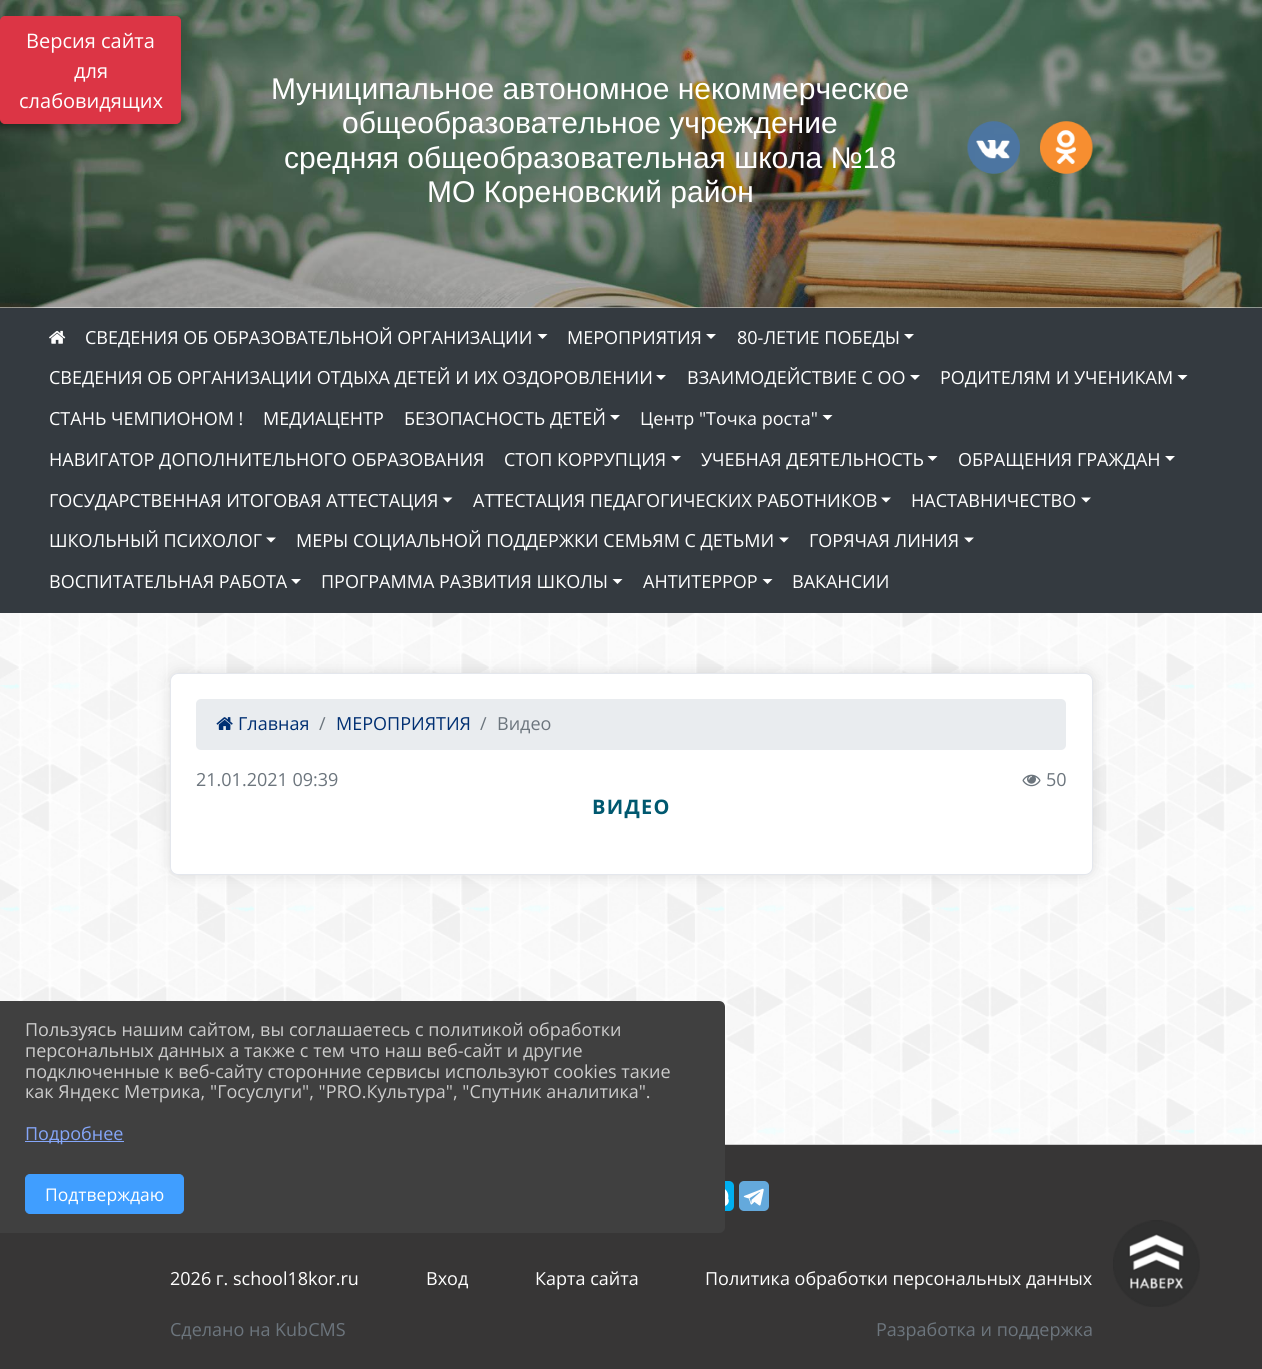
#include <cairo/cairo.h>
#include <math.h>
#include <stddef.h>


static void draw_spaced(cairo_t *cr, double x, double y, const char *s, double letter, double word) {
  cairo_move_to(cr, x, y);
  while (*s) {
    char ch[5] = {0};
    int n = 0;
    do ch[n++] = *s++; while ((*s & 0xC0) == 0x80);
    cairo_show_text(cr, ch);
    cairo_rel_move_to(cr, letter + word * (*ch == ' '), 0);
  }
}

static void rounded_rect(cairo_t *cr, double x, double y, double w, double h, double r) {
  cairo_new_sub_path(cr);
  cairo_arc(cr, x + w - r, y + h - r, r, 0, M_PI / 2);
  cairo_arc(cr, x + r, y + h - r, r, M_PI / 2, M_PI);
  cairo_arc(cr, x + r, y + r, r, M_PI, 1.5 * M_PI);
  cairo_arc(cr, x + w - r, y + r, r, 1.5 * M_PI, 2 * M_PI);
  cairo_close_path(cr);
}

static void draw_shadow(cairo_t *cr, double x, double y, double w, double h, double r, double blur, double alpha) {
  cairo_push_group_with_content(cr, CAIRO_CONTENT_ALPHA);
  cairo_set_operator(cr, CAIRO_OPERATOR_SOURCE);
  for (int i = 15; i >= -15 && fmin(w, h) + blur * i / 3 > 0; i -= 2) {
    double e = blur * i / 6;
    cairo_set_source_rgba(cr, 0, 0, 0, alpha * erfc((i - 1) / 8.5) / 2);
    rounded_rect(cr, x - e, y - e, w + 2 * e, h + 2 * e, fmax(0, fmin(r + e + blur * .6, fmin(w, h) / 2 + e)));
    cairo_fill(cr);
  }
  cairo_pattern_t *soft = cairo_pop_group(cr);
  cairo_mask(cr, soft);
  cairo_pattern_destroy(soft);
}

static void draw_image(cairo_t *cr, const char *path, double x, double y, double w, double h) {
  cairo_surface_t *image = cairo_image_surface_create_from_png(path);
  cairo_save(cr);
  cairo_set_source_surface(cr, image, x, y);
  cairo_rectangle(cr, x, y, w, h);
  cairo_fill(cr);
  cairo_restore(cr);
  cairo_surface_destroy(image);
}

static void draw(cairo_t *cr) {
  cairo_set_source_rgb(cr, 1, 1, 1);
  cairo_paint(cr);
  draw_image(cr, "images/1.png", 0, 307, 1262, 837);
  draw_image(cr, "images/2.png", 0, 0, 1262, 308);
  cairo_set_source_rgb(cr, 0, 0, 0);
  draw_shadow(cr, -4, 25, 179, 105, 4, 5, 0.35);
  cairo_set_source_rgb(cr, 220 / 255.0, 53 / 255.0, 69 / 255.0);
  rounded_rect(cr, 0.5, 16.5, 180, 107, 4.5);
  cairo_fill_preserve(cr);
  cairo_set_line_width(cr, 1);
  cairo_stroke(cr);
  draw_image(cr, "images/3.png", 967, 121, 53, 53);
  draw_image(cr, "images/4.png", 1040, 121, 53, 53);
  cairo_set_source_rgb(cr, 52 / 255.0, 58 / 255.0, 64 / 255.0);
  cairo_rectangle(cr, 0, 308, 1262, 305);
  cairo_fill(cr);
  draw_image(cr, "images/5.png", 49, 330, 17, 14);
  cairo_set_source_rgb(cr, 1, 1, 1);
  cairo_new_path(cr);
  cairo_move_to(cr, 537.5, 334);
  cairo_line_to(cr, 547.5, 334);
  cairo_line_to(cr, 542.5, 339);
  cairo_close_path(cr);
  cairo_fill(cr);
  cairo_new_path(cr);
  cairo_move_to(cr, 706, 334);
  cairo_line_to(cr, 716, 334);
  cairo_line_to(cr, 711, 339);
  cairo_close_path(cr);
  cairo_fill(cr);
  cairo_new_path(cr);
  cairo_move_to(cr, 904, 334);
  cairo_line_to(cr, 914, 334);
  cairo_line_to(cr, 909, 339);
  cairo_close_path(cr);
  cairo_fill(cr);
  cairo_new_path(cr);
  cairo_move_to(cr, 656, 375);
  cairo_line_to(cr, 666, 375);
  cairo_line_to(cr, 661, 380);
  cairo_close_path(cr);
  cairo_fill(cr);
  cairo_new_path(cr);
  cairo_move_to(cr, 910, 375);
  cairo_line_to(cr, 920, 375);
  cairo_line_to(cr, 915, 380);
  cairo_close_path(cr);
  cairo_fill(cr);
  cairo_new_path(cr);
  cairo_move_to(cr, 1177.5, 375);
  cairo_line_to(cr, 1187.5, 375);
  cairo_line_to(cr, 1182.5, 380);
  cairo_close_path(cr);
  cairo_fill(cr);
  cairo_new_path(cr);
  cairo_move_to(cr, 610, 415);
  cairo_line_to(cr, 620, 415);
  cairo_line_to(cr, 615, 420);
  cairo_close_path(cr);
  cairo_fill(cr);
  cairo_new_path(cr);
  cairo_move_to(cr, 822.5, 415);
  cairo_line_to(cr, 832.5, 415);
  cairo_line_to(cr, 827.5, 420);
  cairo_close_path(cr);
  cairo_fill(cr);
  cairo_new_path(cr);
  cairo_move_to(cr, 671, 456);
  cairo_line_to(cr, 681, 456);
  cairo_line_to(cr, 676, 461);
  cairo_close_path(cr);
  cairo_fill(cr);
  cairo_new_path(cr);
  cairo_move_to(cr, 927.5, 456);
  cairo_line_to(cr, 937.5, 456);
  cairo_line_to(cr, 932.5, 461);
  cairo_close_path(cr);
  cairo_fill(cr);
  cairo_new_path(cr);
  cairo_move_to(cr, 1165, 456);
  cairo_line_to(cr, 1175, 456);
  cairo_line_to(cr, 1170, 461);
  cairo_close_path(cr);
  cairo_fill(cr);
  cairo_new_path(cr);
  cairo_move_to(cr, 442.5, 497.5);
  cairo_line_to(cr, 452.5, 497.5);
  cairo_line_to(cr, 447.5, 502.5);
  cairo_close_path(cr);
  cairo_fill(cr);
  cairo_new_path(cr);
  cairo_move_to(cr, 881, 497.5);
  cairo_line_to(cr, 891, 497.5);
  cairo_line_to(cr, 886, 502.5);
  cairo_close_path(cr);
  cairo_fill(cr);
  cairo_new_path(cr);
  cairo_move_to(cr, 1081, 497.5);
  cairo_line_to(cr, 1091, 497.5);
  cairo_line_to(cr, 1086, 502.5);
  cairo_close_path(cr);
  cairo_fill(cr);
  cairo_new_path(cr);
  cairo_move_to(cr, 266, 537.5);
  cairo_line_to(cr, 276, 537.5);
  cairo_line_to(cr, 271, 542.5);
  cairo_close_path(cr);
  cairo_fill(cr);
  cairo_new_path(cr);
  cairo_move_to(cr, 779, 537.5);
  cairo_line_to(cr, 789, 537.5);
  cairo_line_to(cr, 784, 542.5);
  cairo_close_path(cr);
  cairo_fill(cr);
  cairo_new_path(cr);
  cairo_move_to(cr, 964, 537.5);
  cairo_line_to(cr, 974, 537.5);
  cairo_line_to(cr, 969, 542.5);
  cairo_close_path(cr);
  cairo_fill(cr);
  cairo_new_path(cr);
  cairo_move_to(cr, 291, 579);
  cairo_line_to(cr, 301, 579);
  cairo_line_to(cr, 296, 584);
  cairo_close_path(cr);
  cairo_fill(cr);
  cairo_new_path(cr);
  cairo_move_to(cr, 612.5, 579);
  cairo_line_to(cr, 622.5, 579);
  cairo_line_to(cr, 617.5, 584);
  cairo_close_path(cr);
  cairo_fill(cr);
  cairo_new_path(cr);
  cairo_move_to(cr, 762.5, 579);
  cairo_line_to(cr, 772.5, 579);
  cairo_line_to(cr, 767.5, 584);
  cairo_close_path(cr);
  cairo_fill(cr);
  cairo_set_source_rgb(cr, 0, 0, 0);
  draw_shadow(cr, 170, 673, 923, 202, 8, 7.5, 0.12);
  cairo_set_source_rgb(cr, 1, 1, 1);
  rounded_rect(cr, 170.5, 673.5, 922, 201, 7.5);
  cairo_fill_preserve(cr);
  cairo_set_source_rgb(cr, 228 / 255.0, 231 / 255.0, 237 / 255.0);
  cairo_stroke(cr);
  cairo_set_source_rgb(cr, 233 / 255.0, 236 / 255.0, 239 / 255.0);
  rounded_rect(cr, 196, 699, 870, 51, 5);
  cairo_fill(cr);
  draw_image(cr, "images/6.png", 216, 717, 17, 13);
  draw_image(cr, "images/7.png", 1022, 774, 19, 13);
  cairo_set_source_rgb(cr, 55 / 255.0, 54 / 255.0, 54 / 255.0);
  cairo_rectangle(cr, 0, 1145, 1262, 224);
  cairo_fill(cr);
  cairo_set_source_rgb(cr, 204 / 255.0, 204 / 255.0, 204 / 255.0);
  cairo_rectangle(cr, 725, 1144, 537, 1);
  cairo_fill(cr);
  cairo_set_source_rgb(cr, 0, 175 / 255.0, 240 / 255.0);
  rounded_rect(cr, 704, 1181, 30, 30, 5);
  cairo_fill(cr);
  draw_image(cr, "images/8.png", 725, 1189, 4, 17);
  cairo_set_source_rgb(cr, 100 / 255.0, 169 / 255.0, 220 / 255.0);
  rounded_rect(cr, 739, 1181, 30, 30, 5);
  cairo_fill(cr);
  draw_image(cr, "images/9.png", 743, 1188, 21, 18);
  draw_image(cr, "images/10.png", 1113, 1220, 87, 87);
  cairo_set_source_rgb(cr, 64 / 255.0, 64 / 255.0, 64 / 255.0);
  cairo_new_path(cr);
  cairo_move_to(cr, 0, 1001);
  cairo_line_to(cr, 719, 1001);
  cairo_curve_to(cr, 722.5, 1001, 725, 1003.5, 725, 1007);
  cairo_line_to(cr, 725, 1227);
  cairo_curve_to(cr, 725, 1230.5, 722.5, 1233, 719, 1233);
  cairo_line_to(cr, 0, 1233);
  cairo_close_path(cr);
  cairo_fill(cr);
  cairo_set_source_rgb(cr, 133 / 255.0, 166 / 255.0, 249 / 255.0);
  cairo_rectangle(cr, 25, 1141, 99, 1);
  cairo_fill(cr);
  cairo_set_source_rgb(cr, 64 / 255.0, 158 / 255.0, 1);
  rounded_rect(cr, 25.5, 1174.5, 158, 39, 4.5);
  cairo_fill_preserve(cr);
  cairo_stroke(cr);
  cairo_select_font_face(cr, "Open Sans", CAIRO_FONT_SLANT_NORMAL, CAIRO_FONT_WEIGHT_NORMAL);
  cairo_set_font_size(cr, 20);
  cairo_set_source_rgb(cr, 1, 1, 1);
  cairo_move_to(cr, 26, 48);
  cairo_show_text(cr, "Версия сайта");
  cairo_move_to(cr, 74, 78);
  cairo_show_text(cr, "для");
  cairo_move_to(cr, 19, 108);
  cairo_show_text(cr, "слабовидящих");
  cairo_select_font_face(cr, "Liberation Sans", CAIRO_FONT_SLANT_NORMAL, CAIRO_FONT_WEIGHT_NORMAL);
  cairo_set_font_size(cr, 30);
  cairo_move_to(cr, 271, 99);
  cairo_show_text(cr, "Муниципальное автономное некоммерческое");
  cairo_move_to(cr, 342, 133);
  cairo_show_text(cr, "общеобразовательное учреждение");
  cairo_move_to(cr, 284, 168);
  cairo_show_text(cr, "средняя общеобразовательная школа №18");
  cairo_move_to(cr, 427, 202);
  cairo_show_text(cr, "МО Кореновский район");
  cairo_select_font_face(cr, "Open Sans", CAIRO_FONT_SLANT_NORMAL, CAIRO_FONT_WEIGHT_NORMAL);
  cairo_set_font_size(cr, 18);
  cairo_move_to(cr, 85, 344);
  cairo_show_text(cr, "СВЕДЕНИЯ ОБ ОБРАЗОВАТЕЛЬНОЙ ОРГАНИЗАЦИИ");
  cairo_move_to(cr, 567, 344);
  cairo_show_text(cr, "МЕРОПРИЯТИЯ");
  cairo_move_to(cr, 737, 344);
  cairo_show_text(cr, "80-ЛЕТИЕ ПОБЕДЫ");
  cairo_move_to(cr, 49, 384);
  cairo_show_text(cr, "СВЕДЕНИЯ ОБ ОРГАНИЗАЦИИ ОТДЫХА ДЕТЕЙ И ИХ ОЗДОРОВЛЕНИИ");
  cairo_move_to(cr, 687, 384);
  cairo_show_text(cr, "ВЗАИМОДЕЙСТВИЕ С ОО");
  cairo_move_to(cr, 940, 384);
  cairo_show_text(cr, "РОДИТЕЛЯМ И УЧЕНИКАМ");
  cairo_move_to(cr, 49, 425);
  cairo_show_text(cr, "СТАНЬ ЧЕМПИОНОМ !");
  cairo_move_to(cr, 263, 425);
  cairo_show_text(cr, "МЕДИАЦЕНТР");
  cairo_move_to(cr, 404, 425);
  cairo_show_text(cr, "БЕЗОПАСНОСТЬ ДЕТЕЙ");
  cairo_move_to(cr, 640, 425);
  cairo_show_text(cr, "Центр \"Точка роста\"");
  cairo_move_to(cr, 49, 466);
  cairo_show_text(cr, "НАВИГАТОР ДОПОЛНИТЕЛЬНОГО ОБРАЗОВАНИЯ");
  cairo_move_to(cr, 504, 466);
  cairo_show_text(cr, "СТОП КОРРУПЦИЯ");
  cairo_move_to(cr, 701, 466);
  cairo_show_text(cr, "УЧЕБНАЯ ДЕЯТЕЛЬНОСТЬ");
  cairo_move_to(cr, 958, 466);
  cairo_show_text(cr, "ОБРАЩЕНИЯ ГРАЖДАН");
  cairo_move_to(cr, 49, 507);
  cairo_show_text(cr, "ГОСУДАРСТВЕННАЯ ИТОГОВАЯ АТТЕСТАЦИЯ");
  cairo_move_to(cr, 473, 507);
  cairo_show_text(cr, "АТТЕСТАЦИЯ ПЕДАГОГИЧЕСКИХ РАБОТНИКОВ");
  cairo_move_to(cr, 911, 507);
  cairo_show_text(cr, "НАСТАВНИЧЕСТВО");
  cairo_move_to(cr, 49, 547);
  cairo_show_text(cr, "ШКОЛЬНЫЙ ПСИХОЛОГ");
  cairo_move_to(cr, 296, 547);
  cairo_show_text(cr, "МЕРЫ СОЦИАЛЬНОЙ ПОДДЕРЖКИ СЕМЬЯМ С ДЕТЬМИ");
  cairo_move_to(cr, 809, 547);
  cairo_show_text(cr, "ГОРЯЧАЯ ЛИНИЯ");
  cairo_move_to(cr, 49, 588);
  cairo_show_text(cr, "ВОСПИТАТЕЛЬНАЯ РАБОТА");
  cairo_move_to(cr, 321, 588);
  cairo_show_text(cr, "ПРОГРАММА РАЗВИТИЯ ШКОЛЫ");
  cairo_move_to(cr, 643, 588);
  cairo_show_text(cr, "АНТИТЕРРОР");
  cairo_move_to(cr, 792, 588);
  cairo_show_text(cr, "ВАКАНСИИ");
  cairo_set_source_rgb(cr, 0, 47 / 255.0, 114 / 255.0);
  cairo_move_to(cr, 238, 730);
  cairo_show_text(cr, "Главная");
  cairo_set_source_rgb(cr, 108 / 255.0, 117 / 255.0, 125 / 255.0);
  cairo_move_to(cr, 319, 730);
  cairo_show_text(cr, "/");
  cairo_set_source_rgb(cr, 0, 47 / 255.0, 114 / 255.0);
  cairo_move_to(cr, 336, 730);
  cairo_show_text(cr, "МЕРОПРИЯТИЯ");
  cairo_set_source_rgb(cr, 108 / 255.0, 117 / 255.0, 125 / 255.0);
  cairo_move_to(cr, 480, 730);
  cairo_show_text(cr, "/");
  cairo_move_to(cr, 497, 730);
  cairo_show_text(cr, "Видео");
  cairo_move_to(cr, 196, 786);
  cairo_show_text(cr, "21.01.2021 09:39");
  cairo_move_to(cr, 1046, 786);
  cairo_show_text(cr, "50");
  cairo_select_font_face(cr, "Open Sans", CAIRO_FONT_SLANT_NORMAL, CAIRO_FONT_WEIGHT_BOLD);
  cairo_set_font_size(cr, 20);
  cairo_set_source_rgb(cr, 0, 88 / 255.0, 111 / 255.0);
  draw_spaced(cr, 592, 814, "ВИДЕО", 1.25, 0);
  cairo_select_font_face(cr, "Open Sans", CAIRO_FONT_SLANT_NORMAL, CAIRO_FONT_WEIGHT_NORMAL);
  cairo_set_font_size(cr, 18);
  cairo_set_source_rgb(cr, 1, 1, 1);
  cairo_move_to(cr, 170, 1285);
  cairo_show_text(cr, "2026 г. school18kor.ru");
  cairo_move_to(cr, 426, 1285);
  cairo_show_text(cr, "Вход");
  cairo_move_to(cr, 535, 1285);
  cairo_show_text(cr, "Карта сайта");
  cairo_move_to(cr, 705, 1285);
  cairo_show_text(cr, "Политика обработки персональных данных");
  cairo_set_source_rgb(cr, 108 / 255.0, 117 / 255.0, 125 / 255.0);
  cairo_move_to(cr, 170, 1336);
  cairo_show_text(cr, "Сделано на KubCMS");
  cairo_move_to(cr, 876, 1336);
  cairo_show_text(cr, "Разработка и поддержка");
  cairo_set_source_rgb(cr, 204 / 255.0, 204 / 255.0, 204 / 255.0);
  cairo_move_to(cr, 25, 1036);
  cairo_show_text(cr, "Пользуясь нашим сайтом, вы соглашаетесь с политикой обработки");
  cairo_move_to(cr, 25, 1057);
  cairo_show_text(cr, "персональных данных а также с тем что наш веб-сайт и другие");
  cairo_move_to(cr, 25, 1078);
  cairo_show_text(cr, "подключенные к веб-сайту сторонние сервисы используют cookies такие");
  cairo_move_to(cr, 25, 1098);
  cairo_show_text(cr, "как Яндекс Метрика, \"Госуслуги\", \"PRO.Культура\", \"Спутник аналитика\".");
  cairo_set_source_rgb(cr, 133 / 255.0, 166 / 255.0, 249 / 255.0);
  cairo_move_to(cr, 25, 1140);
  cairo_show_text(cr, "Подробнее");
  cairo_set_font_size(cr, 17.5);
  cairo_set_source_rgb(cr, 1, 1, 1);
  cairo_move_to(cr, 45, 1201);
  cairo_show_text(cr, "Подтверждаю");
}

int main(void) {
  cairo_surface_t *surface = cairo_image_surface_create(CAIRO_FORMAT_RGB24, 1262, 1369);
  cairo_t *cr = cairo_create(surface);
  cairo_font_options_t *options = cairo_font_options_create();
  cairo_font_options_set_hint_metrics(options, CAIRO_HINT_METRICS_OFF);
  cairo_font_options_set_hint_style(options, CAIRO_HINT_STYLE_NONE);
  cairo_set_font_options(cr, options);
  cairo_set_miter_limit(cr, 4);
  draw(cr);
  cairo_surface_write_to_png(surface, "out.png");
  cairo_font_options_destroy(options);
  cairo_destroy(cr);
  cairo_surface_destroy(surface);
  return 0;
}
